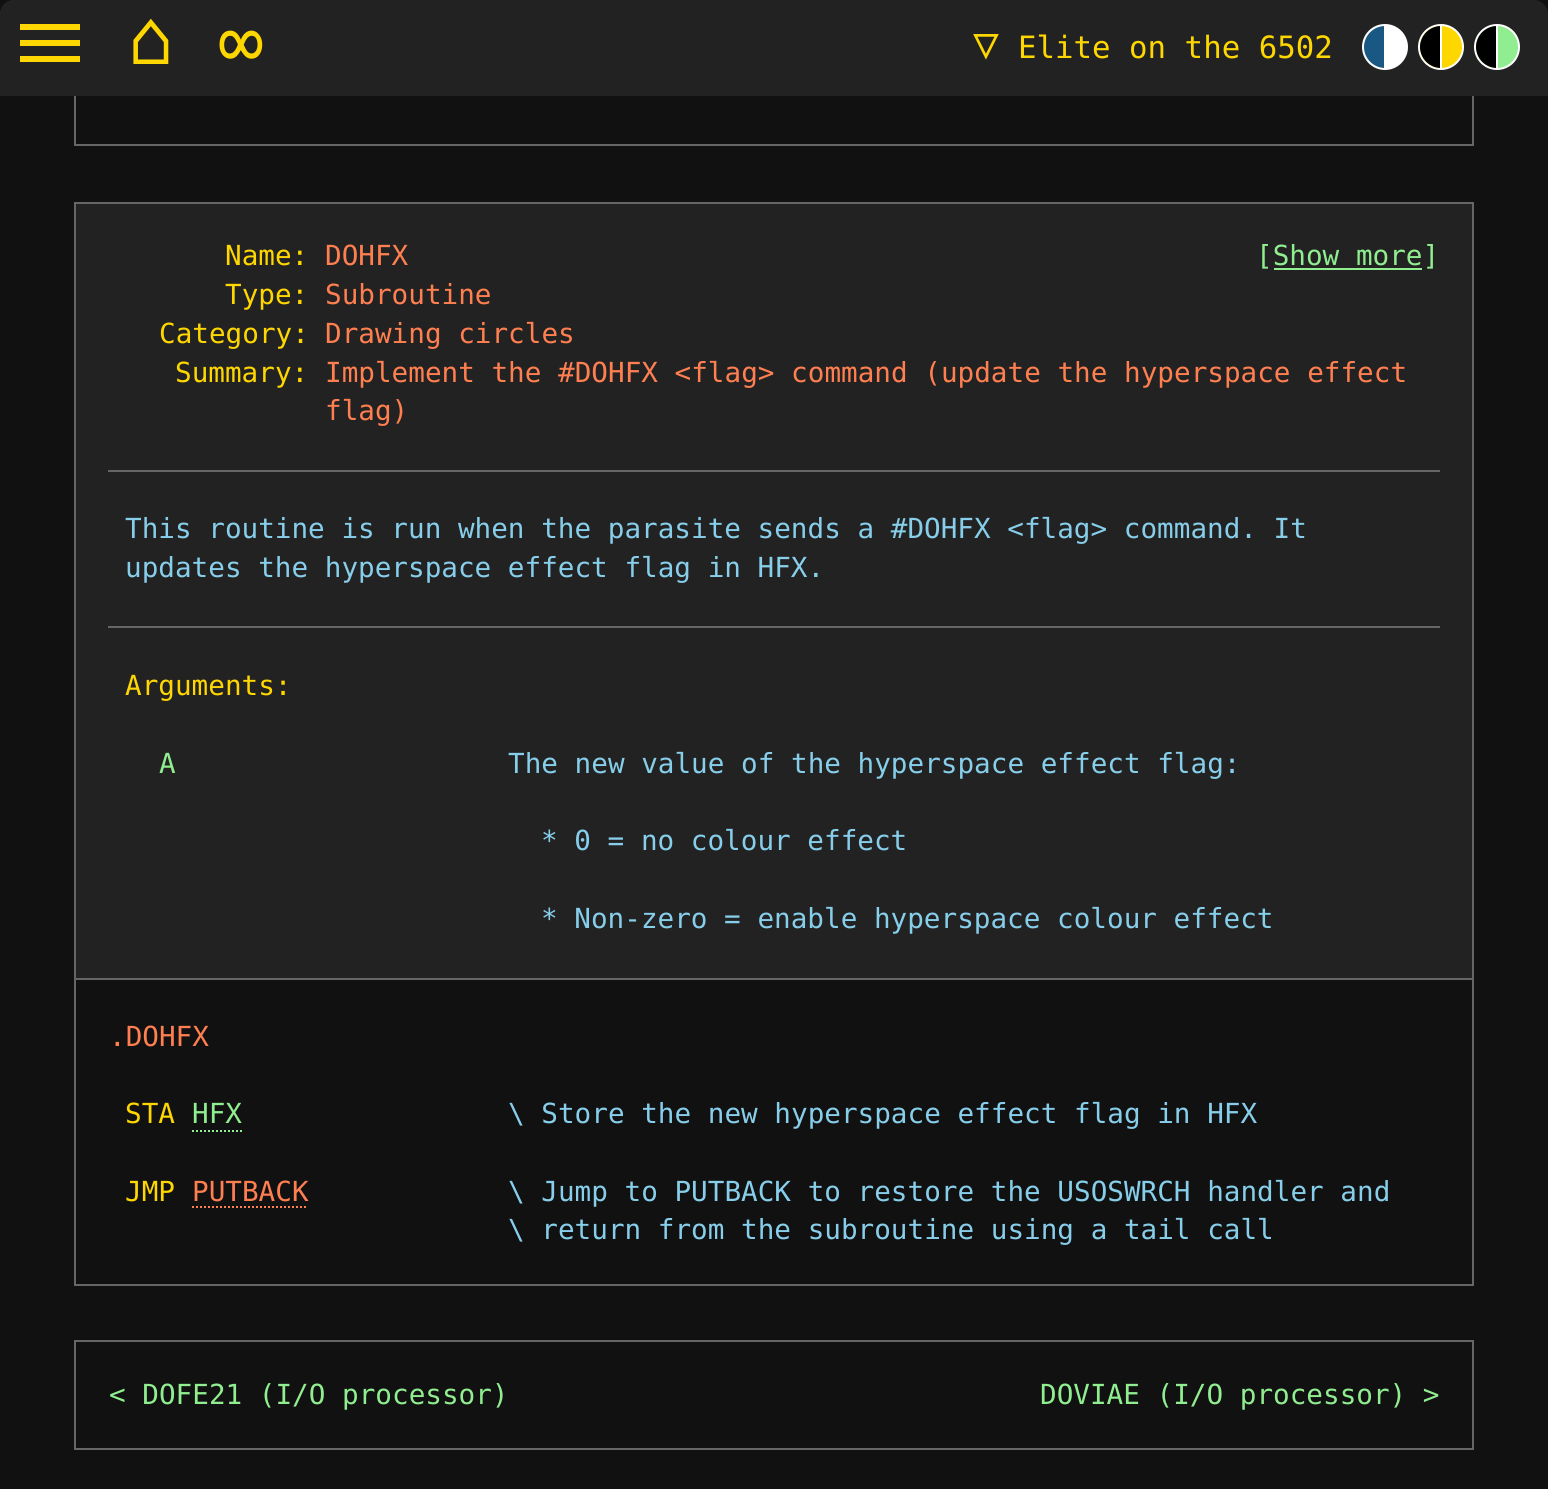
#include <cairo/cairo.h>
#include <math.h>
#include <stddef.h>


static void draw(cairo_t *cr) {
  cairo_set_source_rgb(cr, 17 / 255.0, 17 / 255.0, 17 / 255.0);
  cairo_paint(cr);
  cairo_rectangle(cr, 75, 39, 1398, 106);
  cairo_set_source_rgb(cr, 102 / 255.0, 102 / 255.0, 102 / 255.0);
  cairo_stroke(cr);
  cairo_set_source_rgb(cr, 34 / 255.0, 34 / 255.0, 34 / 255.0);
  cairo_new_path(cr);
  cairo_move_to(cr, 14, 0);
  cairo_line_to(cr, 1534, 0);
  cairo_curve_to(cr, 1541.5, 0, 1548, 6.5, 1548, 14);
  cairo_line_to(cr, 1548, 96);
  cairo_line_to(cr, 0, 96);
  cairo_line_to(cr, 0, 14);
  cairo_curve_to(cr, 0, 6.5, 6.5, 0, 14, 0);
  cairo_close_path(cr);
  cairo_fill(cr);
  cairo_new_path(cr);
  cairo_move_to(cr, 14, 0);
  cairo_line_to(cr, 100, 0);
  cairo_line_to(cr, 100, 86);
  cairo_line_to(cr, 0, 86);
  cairo_line_to(cr, 0, 14);
  cairo_curve_to(cr, 0, 6.5, 6.5, 0, 14, 0);
  cairo_close_path(cr);
  cairo_fill(cr);
  cairo_set_source_rgb(cr, 1, 215 / 255.0, 0);
  cairo_rectangle(cr, 20, 24, 60, 6);
  cairo_fill(cr);
  cairo_rectangle(cr, 20, 40, 60, 6);
  cairo_fill(cr);
  cairo_rectangle(cr, 20, 56, 60, 6);
  cairo_fill(cr);
  cairo_set_source_rgb(cr, 1, 1, 1);
  cairo_arc(cr, 1385, 47, 22, 0, 2 * M_PI);
  cairo_fill_preserve(cr);
  cairo_stroke(cr);
  cairo_set_source_rgb(cr, 24 / 255.0, 88 / 255.0, 130 / 255.0);
  cairo_new_path(cr);
  cairo_move_to(cr, 1385, 26);
  cairo_line_to(cr, 1386, 26);
  cairo_line_to(cr, 1386, 68);
  cairo_line_to(cr, 1385, 68);
  cairo_curve_to(cr, 1373.5, 68, 1364, 58.5, 1364, 47);
  cairo_curve_to(cr, 1364, 35.5, 1373.5, 26, 1385, 26);
  cairo_close_path(cr);
  cairo_fill(cr);
  cairo_set_source_rgb(cr, 1, 1, 1);
  cairo_rectangle(cr, 1384, 26, 2, 42);
  cairo_fill(cr);
  cairo_set_source_rgb(cr, 1, 215 / 255.0, 0);
  cairo_arc(cr, 1441, 47, 22, 0, 2 * M_PI);
  cairo_fill_preserve(cr);
  cairo_set_source_rgb(cr, 1, 1, 1);
  cairo_stroke(cr);
  cairo_set_source_rgb(cr, 0, 0, 0);
  cairo_new_path(cr);
  cairo_move_to(cr, 1441, 26);
  cairo_line_to(cr, 1442, 26);
  cairo_line_to(cr, 1442, 68);
  cairo_line_to(cr, 1441, 68);
  cairo_curve_to(cr, 1429.5, 68, 1420, 58.5, 1420, 47);
  cairo_curve_to(cr, 1420, 35.5, 1429.5, 26, 1441, 26);
  cairo_close_path(cr);
  cairo_fill(cr);
  cairo_set_source_rgb(cr, 1, 1, 1);
  cairo_rectangle(cr, 1440, 26, 2, 42);
  cairo_fill(cr);
  cairo_set_source_rgb(cr, 144 / 255.0, 238 / 255.0, 144 / 255.0);
  cairo_arc(cr, 1497, 47, 22, 0, 2 * M_PI);
  cairo_fill_preserve(cr);
  cairo_set_source_rgb(cr, 1, 1, 1);
  cairo_stroke(cr);
  cairo_set_source_rgb(cr, 0, 0, 0);
  cairo_new_path(cr);
  cairo_move_to(cr, 1497, 26);
  cairo_line_to(cr, 1498, 26);
  cairo_line_to(cr, 1498, 68);
  cairo_line_to(cr, 1497, 68);
  cairo_curve_to(cr, 1485.5, 68, 1476, 58.5, 1476, 47);
  cairo_curve_to(cr, 1476, 35.5, 1485.5, 26, 1497, 26);
  cairo_close_path(cr);
  cairo_fill(cr);
  cairo_set_source_rgb(cr, 1, 1, 1);
  cairo_rectangle(cr, 1496, 26, 2, 42);
  cairo_fill(cr);
  cairo_set_source_rgb(cr, 102 / 255.0, 102 / 255.0, 102 / 255.0);
  cairo_rectangle(cr, 1472, 202, 2, 1084);
  cairo_fill(cr);
  cairo_rectangle(cr, 74, 1284, 1400, 2);
  cairo_fill(cr);
  cairo_rectangle(cr, 74, 202, 2, 1084);
  cairo_fill(cr);
  cairo_set_source_rgb(cr, 34 / 255.0, 34 / 255.0, 34 / 255.0);
  cairo_rectangle(cr, 76, 204, 1396, 774);
  cairo_fill(cr);
  cairo_set_source_rgb(cr, 102 / 255.0, 102 / 255.0, 102 / 255.0);
  cairo_rectangle(cr, 76, 202, 1396, 2);
  cairo_fill(cr);
  cairo_rectangle(cr, 76, 978, 1396, 2);
  cairo_fill(cr);
  cairo_set_source_rgb(cr, 144 / 255.0, 238 / 255.0, 144 / 255.0);
  cairo_rectangle(cr, 1274, 268, 148, 2);
  cairo_fill(cr);
  cairo_set_source_rgb(cr, 102 / 255.0, 102 / 255.0, 102 / 255.0);
  cairo_rectangle(cr, 108, 470, 1332, 2);
  cairo_fill(cr);
  cairo_rectangle(cr, 108, 626, 1332, 2);
  cairo_fill(cr);
  cairo_new_path(cr);
  cairo_move_to(cr, 192, 1131);
  cairo_line_to(cr, 242, 1131);
  cairo_set_source_rgb(cr, 144 / 255.0, 238 / 255.0, 144 / 255.0);
  cairo_set_dash(cr, (double[]){2, 2}, 2, 0);
  cairo_stroke(cr);
  cairo_new_path(cr);
  cairo_move_to(cr, 192, 1207);
  cairo_line_to(cr, 308, 1207);
  cairo_set_source_rgb(cr, 1, 127 / 255.0, 80 / 255.0);
  cairo_stroke(cr);
  cairo_rectangle(cr, 75, 1341, 1398, 108);
  cairo_set_source_rgb(cr, 102 / 255.0, 102 / 255.0, 102 / 255.0);
  cairo_set_dash(cr, NULL, 0, 0);
  cairo_stroke(cr);
  cairo_select_font_face(cr, "DejaVu Sans Mono", CAIRO_FONT_SLANT_NORMAL, CAIRO_FONT_WEIGHT_NORMAL);
  cairo_set_font_size(cr, 76);
  cairo_set_source_rgb(cr, 1, 215 / 255.0, 0);
  cairo_move_to(cr, 128, 64);
  cairo_show_text(cr, "⌂");
  cairo_move_to(cr, 218, 68);
  cairo_show_text(cr, "∞");
  cairo_set_font_size(cr, 43);
  cairo_move_to(cr, 973, 58);
  cairo_show_text(cr, "▽");
  cairo_set_font_size(cr, 30.75);
  cairo_move_to(cr, 1018, 58);
  cairo_show_text(cr, "Elite on the 6502");
  cairo_set_font_size(cr, 27.65);
  cairo_move_to(cr, 225, 265);
  cairo_show_text(cr, "Name:");
  cairo_set_source_rgb(cr, 1, 127 / 255.0, 80 / 255.0);
  cairo_move_to(cr, 325, 265);
  cairo_show_text(cr, "DOHFX");
  cairo_set_source_rgb(cr, 144 / 255.0, 238 / 255.0, 144 / 255.0);
  cairo_move_to(cr, 1256, 265);
  cairo_show_text(cr, "[Show more]");
  cairo_set_source_rgb(cr, 1, 215 / 255.0, 0);
  cairo_move_to(cr, 225, 304);
  cairo_show_text(cr, "Type:");
  cairo_set_source_rgb(cr, 1, 127 / 255.0, 80 / 255.0);
  cairo_move_to(cr, 325, 304);
  cairo_show_text(cr, "Subroutine");
  cairo_set_source_rgb(cr, 1, 215 / 255.0, 0);
  cairo_move_to(cr, 159, 343);
  cairo_show_text(cr, "Category:");
  cairo_set_source_rgb(cr, 1, 127 / 255.0, 80 / 255.0);
  cairo_move_to(cr, 325, 343);
  cairo_show_text(cr, "Drawing circles");
  cairo_set_source_rgb(cr, 1, 215 / 255.0, 0);
  cairo_move_to(cr, 175, 382);
  cairo_show_text(cr, "Summary:");
  cairo_set_source_rgb(cr, 1, 127 / 255.0, 80 / 255.0);
  cairo_move_to(cr, 325, 382);
  cairo_show_text(cr, "Implement the #DOHFX <flag> command (update the hyperspace effect");
  cairo_move_to(cr, 325, 420);
  cairo_show_text(cr, "flag)");
  cairo_set_source_rgb(cr, 135 / 255.0, 206 / 255.0, 235 / 255.0);
  cairo_move_to(cr, 125, 538);
  cairo_show_text(cr, "This routine is run when the parasite sends a #DOHFX <flag> command. It");
  cairo_move_to(cr, 125, 577);
  cairo_show_text(cr, "updates the hyperspace effect flag in HFX.");
  cairo_set_source_rgb(cr, 1, 215 / 255.0, 0);
  cairo_move_to(cr, 125, 695);
  cairo_show_text(cr, "Arguments:");
  cairo_set_source_rgb(cr, 144 / 255.0, 238 / 255.0, 144 / 255.0);
  cairo_move_to(cr, 159, 773);
  cairo_show_text(cr, "A");
  cairo_set_source_rgb(cr, 135 / 255.0, 206 / 255.0, 235 / 255.0);
  cairo_move_to(cr, 508, 773);
  cairo_show_text(cr, "The new value of the hyperspace effect flag:");
  cairo_move_to(cr, 541, 850);
  cairo_show_text(cr, "* 0 = no colour effect");
  cairo_move_to(cr, 541, 928);
  cairo_show_text(cr, "* Non-zero = enable hyperspace colour effect");
  cairo_set_source_rgb(cr, 1, 127 / 255.0, 80 / 255.0);
  cairo_move_to(cr, 109, 1046);
  cairo_show_text(cr, ".DOHFX");
  cairo_set_source_rgb(cr, 1, 215 / 255.0, 0);
  cairo_move_to(cr, 125, 1123);
  cairo_show_text(cr, "STA");
  cairo_set_source_rgb(cr, 144 / 255.0, 238 / 255.0, 144 / 255.0);
  cairo_move_to(cr, 192, 1123);
  cairo_show_text(cr, "HFX");
  cairo_set_source_rgb(cr, 135 / 255.0, 206 / 255.0, 235 / 255.0);
  cairo_move_to(cr, 508, 1123);
  cairo_show_text(cr, "\\ Store the new hyperspace effect flag in HFX");
  cairo_set_source_rgb(cr, 1, 215 / 255.0, 0);
  cairo_move_to(cr, 125, 1201);
  cairo_show_text(cr, "JMP");
  cairo_set_source_rgb(cr, 1, 127 / 255.0, 80 / 255.0);
  cairo_move_to(cr, 192, 1201);
  cairo_show_text(cr, "PUTBACK");
  cairo_set_source_rgb(cr, 135 / 255.0, 206 / 255.0, 235 / 255.0);
  cairo_move_to(cr, 508, 1201);
  cairo_show_text(cr, "\\ Jump to PUTBACK to restore the USOSWRCH handler and");
  cairo_move_to(cr, 508, 1239);
  cairo_show_text(cr, "\\ return from the subroutine using a tail call");
  cairo_set_source_rgb(cr, 144 / 255.0, 238 / 255.0, 144 / 255.0);
  cairo_move_to(cr, 109, 1404);
  cairo_show_text(cr, "< DOFE21 (I/O processor)");
  cairo_move_to(cr, 1040, 1404);
  cairo_show_text(cr, "DOVIAE (I/O processor) >");
}

int main(void) {
  cairo_surface_t *surface = cairo_image_surface_create(CAIRO_FORMAT_RGB24, 1548, 1489);
  cairo_t *cr = cairo_create(surface);
  cairo_font_options_t *options = cairo_font_options_create();
  cairo_font_options_set_hint_metrics(options, CAIRO_HINT_METRICS_OFF);
  cairo_font_options_set_hint_style(options, CAIRO_HINT_STYLE_NONE);
  cairo_set_font_options(cr, options);
  cairo_set_miter_limit(cr, 4);
  draw(cr);
  cairo_surface_write_to_png(surface, "out.png");
  cairo_font_options_destroy(options);
  cairo_destroy(cr);
  cairo_surface_destroy(surface);
  return 0;
}
